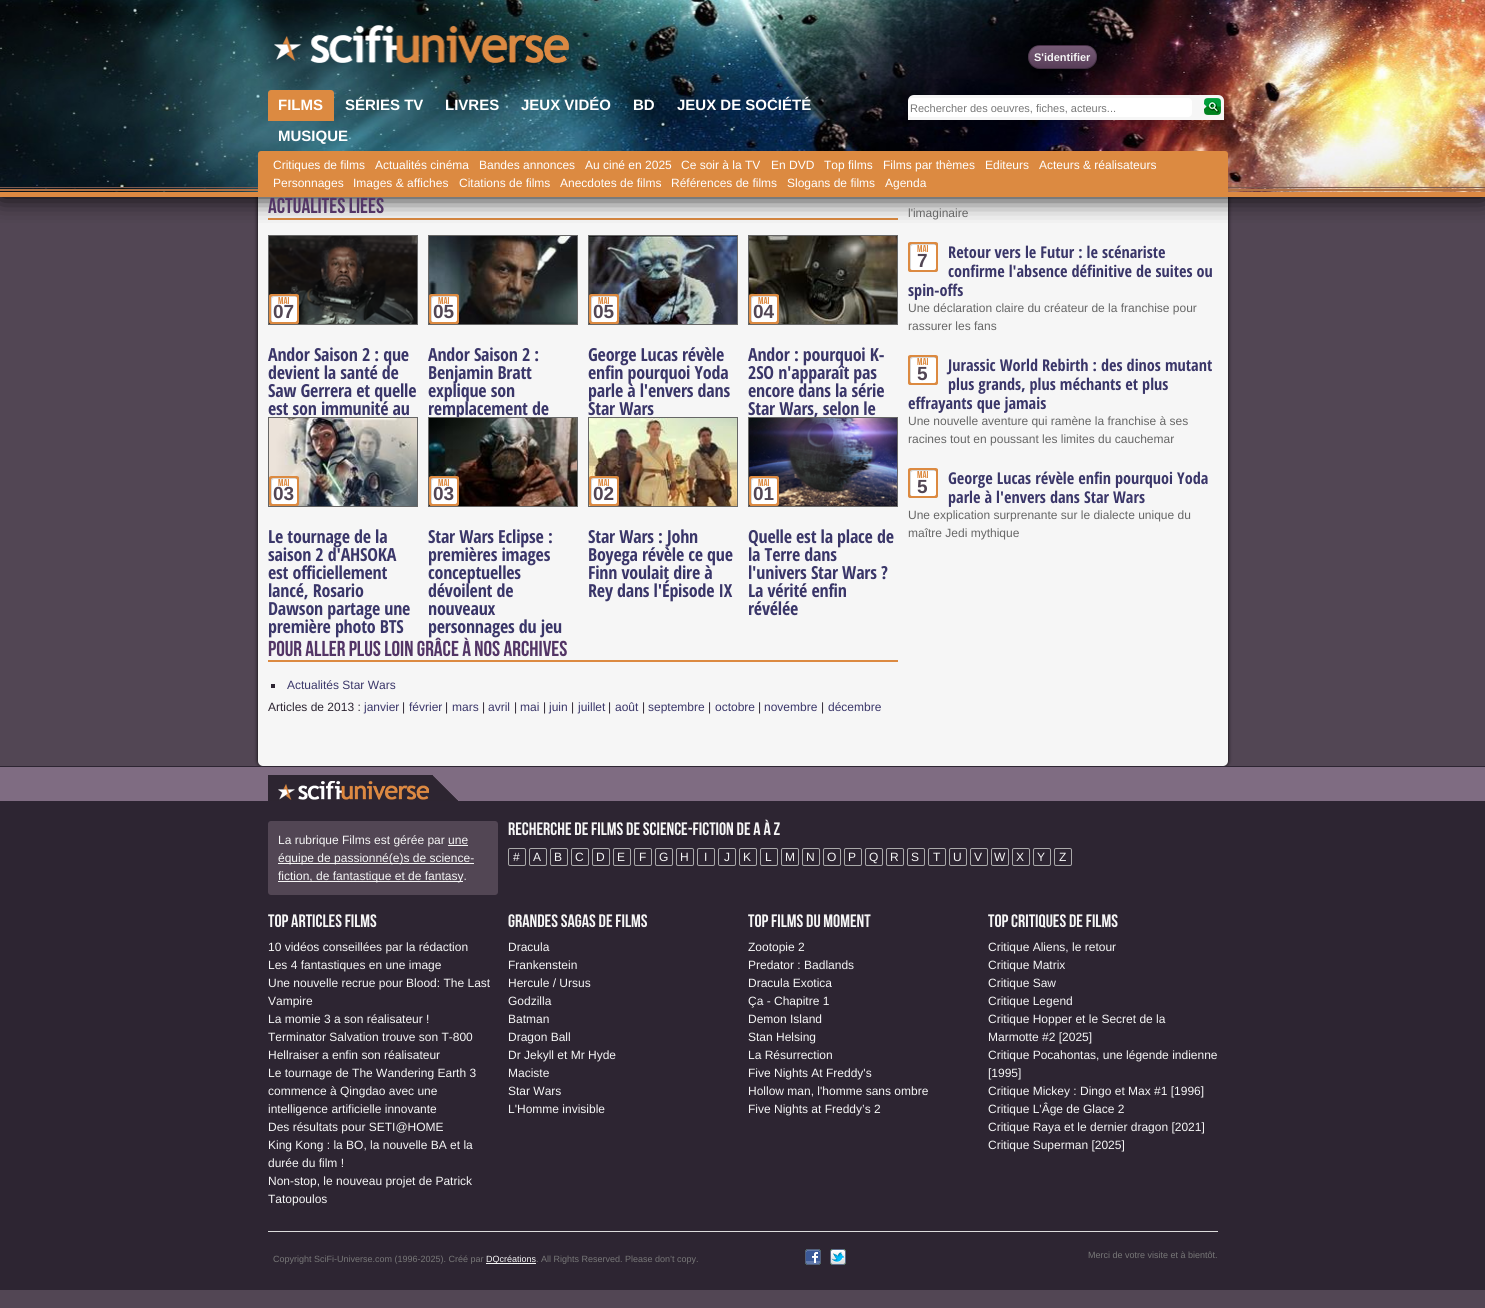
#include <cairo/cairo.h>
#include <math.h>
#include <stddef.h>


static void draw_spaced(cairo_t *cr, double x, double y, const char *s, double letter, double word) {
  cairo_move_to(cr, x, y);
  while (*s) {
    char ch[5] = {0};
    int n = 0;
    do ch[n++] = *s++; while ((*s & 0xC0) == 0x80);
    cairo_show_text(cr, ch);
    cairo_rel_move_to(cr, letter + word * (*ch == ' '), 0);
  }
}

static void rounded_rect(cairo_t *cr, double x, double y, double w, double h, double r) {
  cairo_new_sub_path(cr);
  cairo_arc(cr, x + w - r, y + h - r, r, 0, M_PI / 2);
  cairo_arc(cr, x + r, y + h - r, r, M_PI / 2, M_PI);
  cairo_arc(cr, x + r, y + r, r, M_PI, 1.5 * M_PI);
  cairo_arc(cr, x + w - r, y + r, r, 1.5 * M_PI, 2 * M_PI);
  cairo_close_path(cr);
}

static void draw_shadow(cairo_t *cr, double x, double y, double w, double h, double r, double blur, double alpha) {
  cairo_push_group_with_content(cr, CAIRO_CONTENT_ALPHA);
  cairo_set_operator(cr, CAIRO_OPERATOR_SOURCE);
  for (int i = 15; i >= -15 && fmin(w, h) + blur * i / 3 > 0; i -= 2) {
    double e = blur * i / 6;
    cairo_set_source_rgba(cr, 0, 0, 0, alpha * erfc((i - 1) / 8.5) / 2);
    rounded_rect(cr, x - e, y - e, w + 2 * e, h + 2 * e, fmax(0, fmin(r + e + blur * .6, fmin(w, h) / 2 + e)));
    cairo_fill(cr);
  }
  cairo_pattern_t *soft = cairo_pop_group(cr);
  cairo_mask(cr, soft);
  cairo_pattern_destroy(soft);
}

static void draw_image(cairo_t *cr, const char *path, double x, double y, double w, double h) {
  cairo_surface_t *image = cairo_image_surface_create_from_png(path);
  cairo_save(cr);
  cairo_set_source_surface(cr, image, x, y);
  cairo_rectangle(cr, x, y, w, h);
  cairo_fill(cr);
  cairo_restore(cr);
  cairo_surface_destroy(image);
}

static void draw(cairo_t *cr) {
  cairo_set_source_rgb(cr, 82 / 255.0, 70 / 255.0, 84 / 255.0);
  cairo_paint(cr);
  cairo_set_source_rgb(cr, 0, 0, 0);
  draw_shadow(cr, 258, -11, 970, 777, 5, 2, 1);
  cairo_set_source_rgb(cr, 246 / 255.0, 246 / 255.0, 246 / 255.0);
  rounded_rect(cr, 258, -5, 970, 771, 5);
  cairo_fill(cr);
  draw_image(cr, "images/1.png", 0, 0, 1485, 192);
  cairo_set_source_rgb(cr, 220 / 255.0, 138 / 255.0, 65 / 255.0);
  cairo_rectangle(cr, 268, 218, 630, 2);
  cairo_fill(cr);
  cairo_rectangle(cr, 268.5, 235.5, 149, 89);
  cairo_set_source_rgb(cr, 102 / 255.0, 102 / 255.0, 102 / 255.0);
  cairo_set_line_width(cr, 1);
  cairo_stroke(cr);
  cairo_rectangle(cr, 428.5, 235.5, 149, 89);
  cairo_stroke(cr);
  cairo_rectangle(cr, 588.5, 235.5, 149, 89);
  cairo_stroke(cr);
  cairo_rectangle(cr, 748.5, 235.5, 149, 89);
  cairo_stroke(cr);
  cairo_save(cr);
  cairo_rectangle(cr, 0, 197, 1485, 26);
  cairo_clip(cr);
  cairo_set_source_rgb(cr, 0, 0, 0);
  draw_shadow(cr, 0, 0, 1485, 197, 0, 12.5, 1);
  cairo_restore(cr);
  draw_image(cr, "images/3.png", 274, 25, 295, 40);
  cairo_set_source_rgb(cr, 94 / 255.0, 62 / 255.0, 94 / 255.0);
  rounded_rect(cr, 1028, 45, 69, 24, 12);
  cairo_fill(cr);
  draw_image(cr, "images/4.png", 1028, 46, 69, 23);
  rounded_rect(cr, 1028.5, 45.5, 68, 23, 11.5);
  cairo_set_source_rgba(cr, 0, 0, 0, 0.25);
  cairo_stroke(cr);
  cairo_set_source_rgb(cr, 220 / 255.0, 138 / 255.0, 65 / 255.0);
  cairo_new_path(cr);
  cairo_move_to(cr, 271, 90);
  cairo_line_to(cr, 331, 90);
  cairo_curve_to(cr, 332.5, 90, 334, 91.5, 334, 93);
  cairo_line_to(cr, 334, 121);
  cairo_line_to(cr, 268, 121);
  cairo_line_to(cr, 268, 93);
  cairo_curve_to(cr, 268, 91.5, 269.5, 90, 271, 90);
  cairo_close_path(cr);
  cairo_fill(cr);
  cairo_set_source_rgb(cr, 246 / 255.0, 246 / 255.0, 246 / 255.0);
  cairo_new_path(cr);
  cairo_move_to(cr, 914, 95);
  cairo_line_to(cr, 1218, 95);
  cairo_curve_to(cr, 1221.5, 95, 1224, 97.5, 1224, 101);
  cairo_line_to(cr, 1224, 120);
  cairo_line_to(cr, 908, 120);
  cairo_line_to(cr, 908, 101);
  cairo_curve_to(cr, 908, 97.5, 910.5, 95, 914, 95);
  cairo_close_path(cr);
  cairo_fill(cr);
  cairo_set_source_rgb(cr, 1, 1, 1);
  rounded_rect(cr, 908, 98, 284, 19, 4);
  cairo_fill(cr);
  draw_image(cr, "images/5.png", 1204, 98, 17, 17);
  draw_image(cr, "images/6.png", 269, 236, 148, 88);
  draw_image(cr, "images/7.png", 269, 294, 30, 30);
  draw_image(cr, "images/8.png", 429, 236, 148, 88);
  draw_image(cr, "images/9.png", 429, 294, 30, 30);
  draw_image(cr, "images/10.png", 589, 236, 148, 88);
  draw_image(cr, "images/11.png", 589, 294, 30, 30);
  draw_image(cr, "images/12.png", 749, 236, 148, 88);
  draw_image(cr, "images/13.png", 749, 294, 30, 30);
  cairo_rectangle(cr, 268.5, 417.5, 149, 89);
  cairo_set_source_rgb(cr, 102 / 255.0, 102 / 255.0, 102 / 255.0);
  cairo_stroke(cr);
  draw_image(cr, "images/14.png", 269, 418, 148, 88);
  draw_image(cr, "images/15.png", 269, 476, 30, 30);
  cairo_rectangle(cr, 588.5, 417.5, 149, 89);
  cairo_stroke(cr);
  draw_image(cr, "images/18.png", 589, 418, 148, 88);
  draw_image(cr, "images/19.png", 589, 476, 30, 30);
  cairo_set_source_rgb(cr, 220 / 255.0, 138 / 255.0, 65 / 255.0);
  cairo_rectangle(cr, 268, 660, 630, 2);
  cairo_fill(cr);
  cairo_set_source_rgb(cr, 45 / 255.0, 37 / 255.0, 50 / 255.0);
  cairo_rectangle(cr, 271, 684, 4, 4);
  cairo_fill(cr);
  draw_image(cr, "images/22.png", 908, 242, 30, 30);
  draw_image(cr, "images/22.png", 908, 355, 30, 30);
  draw_image(cr, "images/22.png", 908, 468, 30, 30);
  cairo_set_source_rgb(cr, 127 / 255.0, 108 / 255.0, 130 / 255.0);
  cairo_rectangle(cr, 0, 767, 1485, 34);
  cairo_fill(cr);
  cairo_set_source_rgb(cr, 45 / 255.0, 37 / 255.0, 50 / 255.0);
  cairo_rectangle(cr, 0, 766, 1485, 1);
  cairo_fill(cr);
  draw_image(cr, "images/23.png", 268, 775, 190, 26);
  cairo_rectangle(cr, 0, 801, 1485, 489);
  cairo_fill(cr);
  cairo_set_source_rgb(cr, 82 / 255.0, 70 / 255.0, 84 / 255.0);
  rounded_rect(cr, 268, 821, 230, 74, 3);
  cairo_fill(cr);
  cairo_set_source_rgb(cr, 246 / 255.0, 246 / 255.0, 246 / 255.0);
  cairo_rectangle(cr, 448, 845, 20, 1);
  cairo_fill(cr);
  cairo_rectangle(cr, 278, 863, 196, 1);
  cairo_fill(cr);
  cairo_rectangle(cr, 278, 881, 185, 1);
  cairo_fill(cr);
  rounded_rect(cr, 508.5, 848.5, 17, 17, 1.5);
  cairo_set_source_rgb(cr, 170 / 255.0, 170 / 255.0, 170 / 255.0);
  cairo_stroke(cr);
  rounded_rect(cr, 529.5, 848.5, 17, 17, 1.5);
  cairo_stroke(cr);
  rounded_rect(cr, 550.5, 848.5, 17, 17, 1.5);
  cairo_stroke(cr);
  rounded_rect(cr, 571.5, 848.5, 17, 17, 1.5);
  cairo_stroke(cr);
  rounded_rect(cr, 592.5, 848.5, 17, 17, 1.5);
  cairo_stroke(cr);
  rounded_rect(cr, 613.5, 848.5, 17, 17, 1.5);
  cairo_stroke(cr);
  rounded_rect(cr, 634.5, 848.5, 17, 17, 1.5);
  cairo_stroke(cr);
  rounded_rect(cr, 655.5, 848.5, 17, 17, 1.5);
  cairo_stroke(cr);
  rounded_rect(cr, 676.5, 848.5, 17, 17, 1.5);
  cairo_stroke(cr);
  rounded_rect(cr, 697.5, 848.5, 17, 17, 1.5);
  cairo_stroke(cr);
  rounded_rect(cr, 718.5, 848.5, 17, 17, 1.5);
  cairo_stroke(cr);
  rounded_rect(cr, 739.5, 848.5, 17, 17, 1.5);
  cairo_stroke(cr);
  rounded_rect(cr, 760.5, 848.5, 17, 17, 1.5);
  cairo_stroke(cr);
  rounded_rect(cr, 781.5, 848.5, 17, 17, 1.5);
  cairo_stroke(cr);
  rounded_rect(cr, 802.5, 848.5, 17, 17, 1.5);
  cairo_stroke(cr);
  rounded_rect(cr, 823.5, 848.5, 17, 17, 1.5);
  cairo_stroke(cr);
  rounded_rect(cr, 844.5, 848.5, 17, 17, 1.5);
  cairo_stroke(cr);
  rounded_rect(cr, 865.5, 848.5, 17, 17, 1.5);
  cairo_stroke(cr);
  rounded_rect(cr, 886.5, 848.5, 17, 17, 1.5);
  cairo_stroke(cr);
  rounded_rect(cr, 907.5, 848.5, 17, 17, 1.5);
  cairo_stroke(cr);
  rounded_rect(cr, 928.5, 848.5, 17, 17, 1.5);
  cairo_stroke(cr);
  rounded_rect(cr, 949.5, 848.5, 17, 17, 1.5);
  cairo_stroke(cr);
  rounded_rect(cr, 970.5, 848.5, 17, 17, 1.5);
  cairo_stroke(cr);
  rounded_rect(cr, 991.5, 848.5, 17, 17, 1.5);
  cairo_stroke(cr);
  rounded_rect(cr, 1012.5, 848.5, 17, 17, 1.5);
  cairo_stroke(cr);
  rounded_rect(cr, 1033.5, 848.5, 17, 17, 1.5);
  cairo_stroke(cr);
  rounded_rect(cr, 1054.5, 848.5, 17, 17, 1.5);
  cairo_stroke(cr);
  cairo_set_source_rgb(cr, 221 / 255.0, 221 / 255.0, 221 / 255.0);
  cairo_rectangle(cr, 268, 1231, 950, 1);
  cairo_fill(cr);
  cairo_set_source_rgb(cr, 246 / 255.0, 246 / 255.0, 246 / 255.0);
  cairo_rectangle(cr, 486, 1263, 50, 1);
  cairo_fill(cr);
  draw_image(cr, "images/24.png", 805, 1249, 16, 16);
  draw_image(cr, "images/25.png", 830, 1249, 16, 16);
  cairo_select_font_face(cr, "Liberation Sans", CAIRO_FONT_SLANT_NORMAL, CAIRO_FONT_WEIGHT_BOLD);
  cairo_set_font_size(cr, 11);
  cairo_move_to(cr, 1034, 61);
  cairo_show_text(cr, "S'identifier");
  cairo_set_font_size(cr, 15);
  cairo_set_source_rgb(cr, 1, 1, 1);
  cairo_move_to(cr, 278, 110);
  cairo_show_text(cr, "FILMS");
  cairo_move_to(cr, 345, 110);
  cairo_show_text(cr, "SÉRIES TV");
  cairo_move_to(cr, 445, 110);
  cairo_show_text(cr, "LIVRES");
  cairo_move_to(cr, 521, 110);
  cairo_show_text(cr, "JEUX VIDÉO");
  cairo_move_to(cr, 633, 110);
  cairo_show_text(cr, "BD");
  cairo_move_to(cr, 677, 110);
  cairo_show_text(cr, "JEUX DE SOCIÉTÉ");
  cairo_move_to(cr, 278, 141);
  cairo_show_text(cr, "MUSIQUE");
  cairo_select_font_face(cr, "Liberation Sans", CAIRO_FONT_SLANT_NORMAL, CAIRO_FONT_WEIGHT_NORMAL);
  cairo_set_font_size(cr, 11);
  cairo_set_source_rgb(cr, 119 / 255.0, 119 / 255.0, 119 / 255.0);
  cairo_move_to(cr, 910, 112);
  cairo_show_text(cr, "Rechercher des oeuvres, fiches, acteurs...");
  cairo_select_font_face(cr, "Bebas Neue", CAIRO_FONT_SLANT_NORMAL, CAIRO_FONT_WEIGHT_NORMAL);
  cairo_set_font_size(cr, 21.6);
  cairo_set_source_rgb(cr, 83 / 255.0, 53 / 255.0, 102 / 255.0);
  cairo_move_to(cr, 268, 213);
  cairo_show_text(cr, "Actualités Liées");
  draw_image(cr, "images/2.png", 0, 187, 1485, 10);
  cairo_set_source_rgb(cr, 220 / 255.0, 138 / 255.0, 65 / 255.0);
  rounded_rect(cr, 258, 151, 970, 46, 3);
  cairo_fill(cr);
  cairo_select_font_face(cr, "Liberation Sans", CAIRO_FONT_SLANT_NORMAL, CAIRO_FONT_WEIGHT_NORMAL);
  cairo_set_font_size(cr, 12);
  cairo_set_source_rgb(cr, 1, 1, 1);
  cairo_move_to(cr, 885, 187);
  cairo_show_text(cr, "Agenda");
  cairo_move_to(cr, 787, 187);
  cairo_show_text(cr, "Slogans de films");
  cairo_move_to(cr, 671, 187);
  cairo_show_text(cr, "Références de films");
  cairo_move_to(cr, 560, 187);
  cairo_show_text(cr, "Anecdotes de films");
  cairo_move_to(cr, 459, 187);
  cairo_show_text(cr, "Citations de films");
  cairo_move_to(cr, 353, 187);
  cairo_show_text(cr, "Images & affiches");
  cairo_move_to(cr, 273, 187);
  cairo_show_text(cr, "Personnages");
  cairo_move_to(cr, 1039, 169);
  cairo_show_text(cr, "Acteurs & réalisateurs");
  cairo_move_to(cr, 985, 169);
  cairo_show_text(cr, "Editeurs");
  cairo_move_to(cr, 883, 169);
  cairo_show_text(cr, "Films par thèmes");
  cairo_move_to(cr, 824, 169);
  cairo_show_text(cr, "Top films");
  cairo_move_to(cr, 771, 169);
  cairo_show_text(cr, "En DVD");
  cairo_move_to(cr, 681, 169);
  cairo_show_text(cr, "Ce soir à la TV");
  cairo_move_to(cr, 585, 169);
  cairo_show_text(cr, "Au ciné en 2025");
  cairo_move_to(cr, 479, 169);
  cairo_show_text(cr, "Bandes annonces");
  cairo_move_to(cr, 375, 169);
  cairo_show_text(cr, "Actualités cinéma");
  cairo_move_to(cr, 273, 169);
  cairo_show_text(cr, "Critiques de films");
  cairo_select_font_face(cr, "Bebas Neue", CAIRO_FONT_SLANT_NORMAL, CAIRO_FONT_WEIGHT_NORMAL);
  cairo_set_font_size(cr, 10);
  cairo_set_source_rgb(cr, 220 / 255.0, 138 / 255.0, 65 / 255.0);
  cairo_move_to(cr, 278, 304);
  cairo_show_text(cr, "mai");
  cairo_select_font_face(cr, "Liberation Sans", CAIRO_FONT_SLANT_NORMAL, CAIRO_FONT_WEIGHT_BOLD);
  cairo_set_font_size(cr, 19);
  cairo_set_source_rgb(cr, 82 / 255.0, 70 / 255.0, 84 / 255.0);
  cairo_move_to(cr, 273, 318);
  cairo_show_text(cr, "07");
  cairo_select_font_face(cr, "Open Sans Condensed", CAIRO_FONT_SLANT_NORMAL, CAIRO_FONT_WEIGHT_BOLD);
  cairo_set_font_size(cr, 18);
  cairo_set_source_rgb(cr, 58 / 255.0, 54 / 255.0, 105 / 255.0);
  draw_spaced(cr, 268, 361, "Andor Saison 2 : que", -0.2, 0);
  draw_spaced(cr, 268, 379, "devient la santé de", -0.2, 0);
  draw_spaced(cr, 268, 397, "Saw Gerrera et quelle", -0.2, 0);
  draw_spaced(cr, 268, 415, "est son immunité au", -0.2, 0);
  cairo_select_font_face(cr, "Bebas Neue", CAIRO_FONT_SLANT_NORMAL, CAIRO_FONT_WEIGHT_NORMAL);
  cairo_set_font_size(cr, 10);
  cairo_set_source_rgb(cr, 220 / 255.0, 138 / 255.0, 65 / 255.0);
  cairo_move_to(cr, 438, 304);
  cairo_show_text(cr, "mai");
  cairo_select_font_face(cr, "Liberation Sans", CAIRO_FONT_SLANT_NORMAL, CAIRO_FONT_WEIGHT_BOLD);
  cairo_set_font_size(cr, 19);
  cairo_set_source_rgb(cr, 82 / 255.0, 70 / 255.0, 84 / 255.0);
  cairo_move_to(cr, 433, 318);
  cairo_show_text(cr, "05");
  cairo_select_font_face(cr, "Open Sans Condensed", CAIRO_FONT_SLANT_NORMAL, CAIRO_FONT_WEIGHT_BOLD);
  cairo_set_font_size(cr, 18);
  cairo_set_source_rgb(cr, 58 / 255.0, 54 / 255.0, 105 / 255.0);
  draw_spaced(cr, 428, 361, "Andor Saison 2 :", -0.2, 0);
  draw_spaced(cr, 428, 379, "Benjamin Bratt", -0.2, 0);
  draw_spaced(cr, 428, 397, "explique son", -0.2, 0);
  draw_spaced(cr, 428, 415, "remplacement de", -0.2, 0);
  cairo_select_font_face(cr, "Bebas Neue", CAIRO_FONT_SLANT_NORMAL, CAIRO_FONT_WEIGHT_NORMAL);
  cairo_set_font_size(cr, 10);
  cairo_set_source_rgb(cr, 220 / 255.0, 138 / 255.0, 65 / 255.0);
  cairo_move_to(cr, 598, 304);
  cairo_show_text(cr, "mai");
  cairo_select_font_face(cr, "Liberation Sans", CAIRO_FONT_SLANT_NORMAL, CAIRO_FONT_WEIGHT_BOLD);
  cairo_set_font_size(cr, 19);
  cairo_set_source_rgb(cr, 82 / 255.0, 70 / 255.0, 84 / 255.0);
  cairo_move_to(cr, 593, 318);
  cairo_show_text(cr, "05");
  cairo_select_font_face(cr, "Open Sans Condensed", CAIRO_FONT_SLANT_NORMAL, CAIRO_FONT_WEIGHT_BOLD);
  cairo_set_font_size(cr, 18);
  cairo_set_source_rgb(cr, 58 / 255.0, 54 / 255.0, 105 / 255.0);
  draw_spaced(cr, 588, 361, "George Lucas révèle", -0.2, 0);
  draw_spaced(cr, 588, 379, "enfin pourquoi Yoda", -0.2, 0);
  draw_spaced(cr, 588, 397, "parle à l'envers dans", -0.2, 0);
  draw_spaced(cr, 588, 415, "Star Wars", -0.2, 0);
  cairo_select_font_face(cr, "Bebas Neue", CAIRO_FONT_SLANT_NORMAL, CAIRO_FONT_WEIGHT_NORMAL);
  cairo_set_font_size(cr, 10);
  cairo_set_source_rgb(cr, 220 / 255.0, 138 / 255.0, 65 / 255.0);
  cairo_move_to(cr, 758, 304);
  cairo_show_text(cr, "mai");
  cairo_select_font_face(cr, "Liberation Sans", CAIRO_FONT_SLANT_NORMAL, CAIRO_FONT_WEIGHT_BOLD);
  cairo_set_font_size(cr, 19);
  cairo_set_source_rgb(cr, 82 / 255.0, 70 / 255.0, 84 / 255.0);
  cairo_move_to(cr, 753, 318);
  cairo_show_text(cr, "04");
  cairo_select_font_face(cr, "Open Sans Condensed", CAIRO_FONT_SLANT_NORMAL, CAIRO_FONT_WEIGHT_BOLD);
  cairo_set_font_size(cr, 18);
  cairo_set_source_rgb(cr, 58 / 255.0, 54 / 255.0, 105 / 255.0);
  draw_spaced(cr, 748, 361, "Andor : pourquoi K-", -0.2, 0);
  draw_spaced(cr, 748, 379, "2SO n'apparaît pas", -0.2, 0);
  draw_spaced(cr, 748, 397, "encore dans la série", -0.2, 0);
  draw_spaced(cr, 748, 415, "Star Wars, selon le", -0.2, 0);
  cairo_select_font_face(cr, "Bebas Neue", CAIRO_FONT_SLANT_NORMAL, CAIRO_FONT_WEIGHT_NORMAL);
  cairo_set_font_size(cr, 10);
  cairo_set_source_rgb(cr, 220 / 255.0, 138 / 255.0, 65 / 255.0);
  cairo_move_to(cr, 278, 486);
  cairo_show_text(cr, "mai");
  cairo_select_font_face(cr, "Liberation Sans", CAIRO_FONT_SLANT_NORMAL, CAIRO_FONT_WEIGHT_BOLD);
  cairo_set_font_size(cr, 19);
  cairo_set_source_rgb(cr, 82 / 255.0, 70 / 255.0, 84 / 255.0);
  cairo_move_to(cr, 273, 500);
  cairo_show_text(cr, "03");
  cairo_select_font_face(cr, "Open Sans Condensed", CAIRO_FONT_SLANT_NORMAL, CAIRO_FONT_WEIGHT_BOLD);
  cairo_set_font_size(cr, 18);
  cairo_set_source_rgb(cr, 58 / 255.0, 54 / 255.0, 105 / 255.0);
  draw_spaced(cr, 268, 543, "Le tournage de la", -0.2, 0);
  draw_spaced(cr, 268, 561, "saison 2 d'AHSOKA", -0.2, 0);
  draw_spaced(cr, 268, 579, "est officiellement", -0.2, 0);
  draw_spaced(cr, 268, 597, "lancé, Rosario", -0.2, 0);
  draw_spaced(cr, 268, 615, "Dawson partage une", -0.2, 0);
  draw_spaced(cr, 268, 633, "première photo BTS", -0.2, 0);
  cairo_rectangle(cr, 428.5, 417.5, 149, 89);
  cairo_set_source_rgb(cr, 102 / 255.0, 102 / 255.0, 102 / 255.0);
  cairo_stroke(cr);
  draw_image(cr, "images/16.png", 429, 418, 148, 88);
  draw_image(cr, "images/17.png", 429, 476, 30, 30);
  cairo_select_font_face(cr, "Bebas Neue", CAIRO_FONT_SLANT_NORMAL, CAIRO_FONT_WEIGHT_NORMAL);
  cairo_set_font_size(cr, 10);
  cairo_set_source_rgb(cr, 220 / 255.0, 138 / 255.0, 65 / 255.0);
  cairo_move_to(cr, 438, 486);
  cairo_show_text(cr, "mai");
  cairo_select_font_face(cr, "Liberation Sans", CAIRO_FONT_SLANT_NORMAL, CAIRO_FONT_WEIGHT_BOLD);
  cairo_set_font_size(cr, 19);
  cairo_set_source_rgb(cr, 82 / 255.0, 70 / 255.0, 84 / 255.0);
  cairo_move_to(cr, 433, 500);
  cairo_show_text(cr, "03");
  cairo_select_font_face(cr, "Open Sans Condensed", CAIRO_FONT_SLANT_NORMAL, CAIRO_FONT_WEIGHT_BOLD);
  cairo_set_font_size(cr, 18);
  cairo_set_source_rgb(cr, 58 / 255.0, 54 / 255.0, 105 / 255.0);
  draw_spaced(cr, 428, 543, "Star Wars Eclipse :", -0.2, 0);
  draw_spaced(cr, 428, 561, "premières images", -0.2, 0);
  draw_spaced(cr, 428, 579, "conceptuelles", -0.2, 0);
  draw_spaced(cr, 428, 597, "dévoilent de", -0.2, 0);
  draw_spaced(cr, 428, 615, "nouveaux", -0.2, 0);
  draw_spaced(cr, 428, 633, "personnages du jeu", -0.2, 0);
  cairo_select_font_face(cr, "Bebas Neue", CAIRO_FONT_SLANT_NORMAL, CAIRO_FONT_WEIGHT_NORMAL);
  cairo_set_font_size(cr, 10);
  cairo_set_source_rgb(cr, 220 / 255.0, 138 / 255.0, 65 / 255.0);
  cairo_move_to(cr, 598, 486);
  cairo_show_text(cr, "mai");
  cairo_select_font_face(cr, "Liberation Sans", CAIRO_FONT_SLANT_NORMAL, CAIRO_FONT_WEIGHT_BOLD);
  cairo_set_font_size(cr, 19);
  cairo_set_source_rgb(cr, 82 / 255.0, 70 / 255.0, 84 / 255.0);
  cairo_move_to(cr, 593, 500);
  cairo_show_text(cr, "02");
  cairo_select_font_face(cr, "Open Sans Condensed", CAIRO_FONT_SLANT_NORMAL, CAIRO_FONT_WEIGHT_BOLD);
  cairo_set_font_size(cr, 18);
  cairo_set_source_rgb(cr, 58 / 255.0, 54 / 255.0, 105 / 255.0);
  draw_spaced(cr, 588, 543, "Star Wars : John", -0.2, 0);
  draw_spaced(cr, 588, 561, "Boyega révèle ce que", -0.2, 0);
  draw_spaced(cr, 588, 579, "Finn voulait dire à", -0.2, 0);
  draw_spaced(cr, 588, 597, "Rey dans l'Épisode IX", -0.2, 0);
  cairo_rectangle(cr, 748.5, 417.5, 149, 89);
  cairo_set_source_rgb(cr, 102 / 255.0, 102 / 255.0, 102 / 255.0);
  cairo_stroke(cr);
  draw_image(cr, "images/20.png", 749, 418, 148, 88);
  draw_image(cr, "images/21.png", 749, 476, 30, 30);
  cairo_select_font_face(cr, "Bebas Neue", CAIRO_FONT_SLANT_NORMAL, CAIRO_FONT_WEIGHT_NORMAL);
  cairo_set_font_size(cr, 10);
  cairo_set_source_rgb(cr, 220 / 255.0, 138 / 255.0, 65 / 255.0);
  cairo_move_to(cr, 758, 486);
  cairo_show_text(cr, "mai");
  cairo_select_font_face(cr, "Liberation Sans", CAIRO_FONT_SLANT_NORMAL, CAIRO_FONT_WEIGHT_BOLD);
  cairo_set_font_size(cr, 19);
  cairo_set_source_rgb(cr, 82 / 255.0, 70 / 255.0, 84 / 255.0);
  cairo_move_to(cr, 753, 500);
  cairo_show_text(cr, "01");
  cairo_select_font_face(cr, "Open Sans Condensed", CAIRO_FONT_SLANT_NORMAL, CAIRO_FONT_WEIGHT_BOLD);
  cairo_set_font_size(cr, 18);
  cairo_set_source_rgb(cr, 58 / 255.0, 54 / 255.0, 105 / 255.0);
  draw_spaced(cr, 748, 543, "Quelle est la place de", -0.2, 0);
  draw_spaced(cr, 748, 561, "la Terre dans", -0.2, 0);
  draw_spaced(cr, 748, 579, "l'univers Star Wars ?", -0.2, 0);
  draw_spaced(cr, 748, 597, "La vérité enfin", -0.2, 0);
  draw_spaced(cr, 748, 615, "révélée", -0.2, 0);
  cairo_select_font_face(cr, "Bebas Neue", CAIRO_FONT_SLANT_NORMAL, CAIRO_FONT_WEIGHT_NORMAL);
  cairo_set_font_size(cr, 21.6);
  cairo_set_source_rgb(cr, 83 / 255.0, 53 / 255.0, 102 / 255.0);
  cairo_move_to(cr, 268, 656);
  cairo_show_text(cr, "Pour aller plus loin grâce à nos archives");
  cairo_select_font_face(cr, "Liberation Sans", CAIRO_FONT_SLANT_NORMAL, CAIRO_FONT_WEIGHT_NORMAL);
  cairo_set_font_size(cr, 12);
  cairo_set_source_rgb(cr, 58 / 255.0, 54 / 255.0, 105 / 255.0);
  cairo_move_to(cr, 287, 689);
  cairo_show_text(cr, "Actualités Star Wars");
  cairo_set_source_rgb(cr, 45 / 255.0, 37 / 255.0, 50 / 255.0);
  cairo_move_to(cr, 268, 711);
  cairo_show_text(cr, "Articles de 2013 :");
  cairo_set_source_rgb(cr, 58 / 255.0, 54 / 255.0, 105 / 255.0);
  cairo_move_to(cr, 364, 711);
  cairo_show_text(cr, "janvier");
  cairo_set_source_rgb(cr, 45 / 255.0, 37 / 255.0, 50 / 255.0);
  cairo_move_to(cr, 402, 711);
  cairo_show_text(cr, "|");
  cairo_set_source_rgb(cr, 58 / 255.0, 54 / 255.0, 105 / 255.0);
  cairo_move_to(cr, 409, 711);
  cairo_show_text(cr, "février");
  cairo_set_source_rgb(cr, 45 / 255.0, 37 / 255.0, 50 / 255.0);
  cairo_move_to(cr, 445, 711);
  cairo_show_text(cr, "|");
  cairo_set_source_rgb(cr, 58 / 255.0, 54 / 255.0, 105 / 255.0);
  cairo_move_to(cr, 452, 711);
  cairo_show_text(cr, "mars");
  cairo_set_source_rgb(cr, 45 / 255.0, 37 / 255.0, 50 / 255.0);
  cairo_move_to(cr, 482, 711);
  cairo_show_text(cr, "|");
  cairo_set_source_rgb(cr, 58 / 255.0, 54 / 255.0, 105 / 255.0);
  cairo_move_to(cr, 488, 711);
  cairo_show_text(cr, "avril");
  cairo_set_source_rgb(cr, 45 / 255.0, 37 / 255.0, 50 / 255.0);
  cairo_move_to(cr, 514, 711);
  cairo_show_text(cr, "|");
  cairo_set_source_rgb(cr, 58 / 255.0, 54 / 255.0, 105 / 255.0);
  cairo_move_to(cr, 520, 711);
  cairo_show_text(cr, "mai");
  cairo_set_source_rgb(cr, 45 / 255.0, 37 / 255.0, 50 / 255.0);
  cairo_move_to(cr, 543, 711);
  cairo_show_text(cr, "|");
  cairo_set_source_rgb(cr, 58 / 255.0, 54 / 255.0, 105 / 255.0);
  cairo_move_to(cr, 549, 711);
  cairo_show_text(cr, "juin");
  cairo_set_source_rgb(cr, 45 / 255.0, 37 / 255.0, 50 / 255.0);
  cairo_move_to(cr, 571, 711);
  cairo_show_text(cr, "|");
  cairo_set_source_rgb(cr, 58 / 255.0, 54 / 255.0, 105 / 255.0);
  cairo_move_to(cr, 578, 711);
  cairo_show_text(cr, "juillet");
  cairo_set_source_rgb(cr, 45 / 255.0, 37 / 255.0, 50 / 255.0);
  cairo_move_to(cr, 608, 711);
  cairo_show_text(cr, "|");
  cairo_set_source_rgb(cr, 58 / 255.0, 54 / 255.0, 105 / 255.0);
  cairo_move_to(cr, 615, 711);
  cairo_show_text(cr, "août");
  cairo_set_source_rgb(cr, 45 / 255.0, 37 / 255.0, 50 / 255.0);
  cairo_move_to(cr, 642, 711);
  cairo_show_text(cr, "|");
  cairo_set_source_rgb(cr, 58 / 255.0, 54 / 255.0, 105 / 255.0);
  cairo_move_to(cr, 648, 711);
  cairo_show_text(cr, "septembre");
  cairo_set_source_rgb(cr, 45 / 255.0, 37 / 255.0, 50 / 255.0);
  cairo_move_to(cr, 708, 711);
  cairo_show_text(cr, "|");
  cairo_set_source_rgb(cr, 58 / 255.0, 54 / 255.0, 105 / 255.0);
  cairo_move_to(cr, 715, 711);
  cairo_show_text(cr, "octobre");
  cairo_set_source_rgb(cr, 45 / 255.0, 37 / 255.0, 50 / 255.0);
  cairo_move_to(cr, 758, 711);
  cairo_show_text(cr, "|");
  cairo_set_source_rgb(cr, 58 / 255.0, 54 / 255.0, 105 / 255.0);
  cairo_move_to(cr, 764, 711);
  cairo_show_text(cr, "novembre");
  cairo_set_source_rgb(cr, 45 / 255.0, 37 / 255.0, 50 / 255.0);
  cairo_move_to(cr, 821, 711);
  cairo_show_text(cr, "|");
  cairo_set_source_rgb(cr, 58 / 255.0, 54 / 255.0, 105 / 255.0);
  cairo_move_to(cr, 828, 711);
  cairo_show_text(cr, "décembre");
  cairo_set_source_rgb(cr, 102 / 255.0, 102 / 255.0, 102 / 255.0);
  cairo_move_to(cr, 908, 217);
  cairo_show_text(cr, "l'imaginaire");
  cairo_select_font_face(cr, "Open Sans Condensed", CAIRO_FONT_SLANT_NORMAL, CAIRO_FONT_WEIGHT_BOLD);
  cairo_set_font_size(cr, 16.25);
  cairo_set_source_rgb(cr, 58 / 255.0, 54 / 255.0, 105 / 255.0);
  cairo_move_to(cr, 948, 258);
  cairo_show_text(cr, "Retour vers le Futur : le scénariste");
  cairo_move_to(cr, 948, 277);
  cairo_show_text(cr, "confirme l'absence définitive de suites ou");
  cairo_move_to(cr, 908, 296);
  cairo_show_text(cr, "spin-offs");
  cairo_select_font_face(cr, "Liberation Sans", CAIRO_FONT_SLANT_NORMAL, CAIRO_FONT_WEIGHT_NORMAL);
  cairo_set_font_size(cr, 12);
  cairo_set_source_rgb(cr, 102 / 255.0, 102 / 255.0, 102 / 255.0);
  cairo_move_to(cr, 908, 312);
  cairo_show_text(cr, "Une déclaration claire du créateur de la franchise pour");
  cairo_move_to(cr, 908, 330);
  cairo_show_text(cr, "rassurer les fans");
  cairo_select_font_face(cr, "Bebas Neue", CAIRO_FONT_SLANT_NORMAL, CAIRO_FONT_WEIGHT_NORMAL);
  cairo_set_font_size(cr, 10);
  cairo_set_source_rgb(cr, 220 / 255.0, 138 / 255.0, 65 / 255.0);
  cairo_move_to(cr, 917, 252);
  cairo_show_text(cr, "Mai");
  cairo_select_font_face(cr, "Liberation Sans", CAIRO_FONT_SLANT_NORMAL, CAIRO_FONT_WEIGHT_BOLD);
  cairo_set_font_size(cr, 19);
  cairo_set_source_rgb(cr, 82 / 255.0, 70 / 255.0, 84 / 255.0);
  cairo_move_to(cr, 917, 267);
  cairo_show_text(cr, "7");
  cairo_select_font_face(cr, "Open Sans Condensed", CAIRO_FONT_SLANT_NORMAL, CAIRO_FONT_WEIGHT_BOLD);
  cairo_set_font_size(cr, 16.25);
  cairo_set_source_rgb(cr, 58 / 255.0, 54 / 255.0, 105 / 255.0);
  cairo_move_to(cr, 948, 371);
  cairo_show_text(cr, "Jurassic World Rebirth : des dinos mutant");
  cairo_move_to(cr, 948, 390);
  cairo_show_text(cr, "plus grands, plus méchants et plus");
  cairo_move_to(cr, 908, 409);
  cairo_show_text(cr, "effrayants que jamais");
  cairo_select_font_face(cr, "Liberation Sans", CAIRO_FONT_SLANT_NORMAL, CAIRO_FONT_WEIGHT_NORMAL);
  cairo_set_font_size(cr, 12);
  cairo_set_source_rgb(cr, 102 / 255.0, 102 / 255.0, 102 / 255.0);
  cairo_move_to(cr, 908, 425);
  cairo_show_text(cr, "Une nouvelle aventure qui ramène la franchise à ses");
  cairo_move_to(cr, 908, 443);
  cairo_show_text(cr, "racines tout en poussant les limites du cauchemar");
  cairo_select_font_face(cr, "Bebas Neue", CAIRO_FONT_SLANT_NORMAL, CAIRO_FONT_WEIGHT_NORMAL);
  cairo_set_font_size(cr, 10);
  cairo_set_source_rgb(cr, 220 / 255.0, 138 / 255.0, 65 / 255.0);
  cairo_move_to(cr, 917, 365);
  cairo_show_text(cr, "Mai");
  cairo_select_font_face(cr, "Liberation Sans", CAIRO_FONT_SLANT_NORMAL, CAIRO_FONT_WEIGHT_BOLD);
  cairo_set_font_size(cr, 19);
  cairo_set_source_rgb(cr, 82 / 255.0, 70 / 255.0, 84 / 255.0);
  cairo_move_to(cr, 917, 380);
  cairo_show_text(cr, "5");
  cairo_select_font_face(cr, "Open Sans Condensed", CAIRO_FONT_SLANT_NORMAL, CAIRO_FONT_WEIGHT_BOLD);
  cairo_set_font_size(cr, 16.25);
  cairo_set_source_rgb(cr, 58 / 255.0, 54 / 255.0, 105 / 255.0);
  cairo_move_to(cr, 948, 484);
  cairo_show_text(cr, "George Lucas révèle enfin pourquoi Yoda");
  cairo_move_to(cr, 948, 503);
  cairo_show_text(cr, "parle à l'envers dans Star Wars");
  cairo_select_font_face(cr, "Liberation Sans", CAIRO_FONT_SLANT_NORMAL, CAIRO_FONT_WEIGHT_NORMAL);
  cairo_set_font_size(cr, 12);
  cairo_set_source_rgb(cr, 102 / 255.0, 102 / 255.0, 102 / 255.0);
  cairo_move_to(cr, 908, 519);
  cairo_show_text(cr, "Une explication surprenante sur le dialecte unique du");
  cairo_move_to(cr, 908, 537);
  cairo_show_text(cr, "maître Jedi mythique");
  cairo_select_font_face(cr, "Bebas Neue", CAIRO_FONT_SLANT_NORMAL, CAIRO_FONT_WEIGHT_NORMAL);
  cairo_set_font_size(cr, 10);
  cairo_set_source_rgb(cr, 220 / 255.0, 138 / 255.0, 65 / 255.0);
  cairo_move_to(cr, 917, 478);
  cairo_show_text(cr, "Mai");
  cairo_select_font_face(cr, "Liberation Sans", CAIRO_FONT_SLANT_NORMAL, CAIRO_FONT_WEIGHT_BOLD);
  cairo_set_font_size(cr, 19);
  cairo_set_source_rgb(cr, 82 / 255.0, 70 / 255.0, 84 / 255.0);
  cairo_move_to(cr, 917, 493);
  cairo_show_text(cr, "5");
  cairo_select_font_face(cr, "Liberation Sans", CAIRO_FONT_SLANT_NORMAL, CAIRO_FONT_WEIGHT_NORMAL);
  cairo_set_font_size(cr, 12);
  cairo_set_source_rgb(cr, 246 / 255.0, 246 / 255.0, 246 / 255.0);
  cairo_move_to(cr, 278, 844);
  cairo_show_text(cr, "La rubrique Films est gérée par une");
  cairo_move_to(cr, 278, 862);
  cairo_show_text(cr, "équipe de passionné(e)s de science-");
  cairo_move_to(cr, 278, 880);
  cairo_show_text(cr, "fiction, de fantastique et de fantasy.");
  cairo_select_font_face(cr, "Bebas Neue", CAIRO_FONT_SLANT_NORMAL, CAIRO_FONT_WEIGHT_NORMAL);
  cairo_set_font_size(cr, 18);
  cairo_move_to(cr, 508, 835);
  cairo_show_text(cr, "Recherche de Films de science-fiction de A à Z");
  cairo_select_font_face(cr, "Liberation Sans", CAIRO_FONT_SLANT_NORMAL, CAIRO_FONT_WEIGHT_NORMAL);
  cairo_set_font_size(cr, 12);
  cairo_move_to(cr, 513, 861);
  cairo_show_text(cr, "#");
  cairo_move_to(cr, 533, 861);
  cairo_show_text(cr, "A");
  cairo_move_to(cr, 554, 861);
  cairo_show_text(cr, "B");
  cairo_move_to(cr, 575, 861);
  cairo_show_text(cr, "C");
  cairo_move_to(cr, 596, 861);
  cairo_show_text(cr, "D");
  cairo_move_to(cr, 617, 861);
  cairo_show_text(cr, "E");
  cairo_move_to(cr, 639, 861);
  cairo_show_text(cr, "F");
  cairo_move_to(cr, 659, 861);
  cairo_show_text(cr, "G");
  cairo_move_to(cr, 680, 861);
  cairo_show_text(cr, "H");
  cairo_move_to(cr, 704, 861);
  cairo_show_text(cr, "I");
  cairo_move_to(cr, 724, 861);
  cairo_show_text(cr, "J");
  cairo_move_to(cr, 743, 861);
  cairo_show_text(cr, "K");
  cairo_move_to(cr, 765, 861);
  cairo_show_text(cr, "L");
  cairo_move_to(cr, 785, 861);
  cairo_show_text(cr, "M");
  cairo_move_to(cr, 806, 861);
  cairo_show_text(cr, "N");
  cairo_move_to(cr, 827, 861);
  cairo_show_text(cr, "O");
  cairo_move_to(cr, 848, 861);
  cairo_show_text(cr, "P");
  cairo_move_to(cr, 869, 861);
  cairo_show_text(cr, "Q");
  cairo_move_to(cr, 890, 861);
  cairo_show_text(cr, "R");
  cairo_move_to(cr, 911, 861);
  cairo_show_text(cr, "S");
  cairo_move_to(cr, 933, 861);
  cairo_show_text(cr, "T");
  cairo_move_to(cr, 953, 861);
  cairo_show_text(cr, "U");
  cairo_move_to(cr, 974, 861);
  cairo_show_text(cr, "V");
  cairo_move_to(cr, 994, 861);
  cairo_show_text(cr, "W");
  cairo_move_to(cr, 1016, 861);
  cairo_show_text(cr, "X");
  cairo_move_to(cr, 1037, 861);
  cairo_show_text(cr, "Y");
  cairo_move_to(cr, 1059, 861);
  cairo_show_text(cr, "Z");
  cairo_select_font_face(cr, "Bebas Neue", CAIRO_FONT_SLANT_NORMAL, CAIRO_FONT_WEIGHT_NORMAL);
  cairo_set_font_size(cr, 18);
  cairo_move_to(cr, 268, 927);
  cairo_show_text(cr, "Top articles Films");
  cairo_select_font_face(cr, "Liberation Sans", CAIRO_FONT_SLANT_NORMAL, CAIRO_FONT_WEIGHT_NORMAL);
  cairo_set_font_size(cr, 12);
  cairo_move_to(cr, 268, 951);
  cairo_show_text(cr, "10 vidéos conseillées par la rédaction");
  cairo_move_to(cr, 268, 969);
  cairo_show_text(cr, "Les 4 fantastiques en une image");
  cairo_move_to(cr, 268, 987);
  cairo_show_text(cr, "Une nouvelle recrue pour Blood: The Last");
  cairo_move_to(cr, 268, 1005);
  cairo_show_text(cr, "Vampire");
  cairo_move_to(cr, 268, 1023);
  cairo_show_text(cr, "La momie 3 a son réalisateur !");
  cairo_move_to(cr, 268, 1041);
  cairo_show_text(cr, "Terminator Salvation trouve son T-800");
  cairo_move_to(cr, 268, 1059);
  cairo_show_text(cr, "Hellraiser a enfin son réalisateur");
  cairo_move_to(cr, 268, 1077);
  cairo_show_text(cr, "Le tournage de The Wandering Earth 3");
  cairo_move_to(cr, 268, 1095);
  cairo_show_text(cr, "commence à Qingdao avec une");
  cairo_move_to(cr, 268, 1113);
  cairo_show_text(cr, "intelligence artificielle innovante");
  cairo_move_to(cr, 268, 1131);
  cairo_show_text(cr, "Des résultats pour SETI@HOME");
  cairo_move_to(cr, 268, 1149);
  cairo_show_text(cr, "King Kong : la BO, la nouvelle BA et la");
  cairo_move_to(cr, 268, 1167);
  cairo_show_text(cr, "durée du film !");
  cairo_move_to(cr, 268, 1185);
  cairo_show_text(cr, "Non-stop, le nouveau projet de Patrick");
  cairo_move_to(cr, 268, 1203);
  cairo_show_text(cr, "Tatopoulos");
  cairo_select_font_face(cr, "Bebas Neue", CAIRO_FONT_SLANT_NORMAL, CAIRO_FONT_WEIGHT_NORMAL);
  cairo_set_font_size(cr, 18);
  cairo_move_to(cr, 508, 927);
  cairo_show_text(cr, "Grandes sagas de Films");
  cairo_select_font_face(cr, "Liberation Sans", CAIRO_FONT_SLANT_NORMAL, CAIRO_FONT_WEIGHT_NORMAL);
  cairo_set_font_size(cr, 12);
  cairo_move_to(cr, 508, 951);
  cairo_show_text(cr, "Dracula");
  cairo_move_to(cr, 508, 969);
  cairo_show_text(cr, "Frankenstein");
  cairo_move_to(cr, 508, 987);
  cairo_show_text(cr, "Hercule / Ursus");
  cairo_move_to(cr, 508, 1005);
  cairo_show_text(cr, "Godzilla");
  cairo_move_to(cr, 508, 1023);
  cairo_show_text(cr, "Batman");
  cairo_move_to(cr, 508, 1041);
  cairo_show_text(cr, "Dragon Ball");
  cairo_move_to(cr, 508, 1059);
  cairo_show_text(cr, "Dr Jekyll et Mr Hyde");
  cairo_move_to(cr, 508, 1077);
  cairo_show_text(cr, "Maciste");
  cairo_move_to(cr, 508, 1095);
  cairo_show_text(cr, "Star Wars");
  cairo_move_to(cr, 508, 1113);
  cairo_show_text(cr, "L'Homme invisible");
  cairo_select_font_face(cr, "Bebas Neue", CAIRO_FONT_SLANT_NORMAL, CAIRO_FONT_WEIGHT_NORMAL);
  cairo_set_font_size(cr, 18);
  cairo_move_to(cr, 748, 927);
  cairo_show_text(cr, "Top Films du moment");
  cairo_select_font_face(cr, "Liberation Sans", CAIRO_FONT_SLANT_NORMAL, CAIRO_FONT_WEIGHT_NORMAL);
  cairo_set_font_size(cr, 12);
  cairo_move_to(cr, 748, 951);
  cairo_show_text(cr, "Zootopie 2");
  cairo_move_to(cr, 748, 969);
  cairo_show_text(cr, "Predator : Badlands");
  cairo_move_to(cr, 748, 987);
  cairo_show_text(cr, "Dracula Exotica");
  cairo_move_to(cr, 748, 1005);
  cairo_show_text(cr, "Ça - Chapitre 1");
  cairo_move_to(cr, 748, 1023);
  cairo_show_text(cr, "Demon Island");
  cairo_move_to(cr, 748, 1041);
  cairo_show_text(cr, "Stan Helsing");
  cairo_move_to(cr, 748, 1059);
  cairo_show_text(cr, "La Résurrection");
  cairo_move_to(cr, 748, 1077);
  cairo_show_text(cr, "Five Nights At Freddy's");
  cairo_move_to(cr, 748, 1095);
  cairo_show_text(cr, "Hollow man, l'homme sans ombre");
  cairo_move_to(cr, 748, 1113);
  cairo_show_text(cr, "Five Nights at Freddy’s 2");
  cairo_select_font_face(cr, "Bebas Neue", CAIRO_FONT_SLANT_NORMAL, CAIRO_FONT_WEIGHT_NORMAL);
  cairo_set_font_size(cr, 18);
  cairo_move_to(cr, 988, 927);
  cairo_show_text(cr, "Top critiques de Films");
  cairo_select_font_face(cr, "Liberation Sans", CAIRO_FONT_SLANT_NORMAL, CAIRO_FONT_WEIGHT_NORMAL);
  cairo_set_font_size(cr, 12);
  cairo_move_to(cr, 988, 951);
  cairo_show_text(cr, "Critique Aliens, le retour");
  cairo_move_to(cr, 988, 969);
  cairo_show_text(cr, "Critique Matrix");
  cairo_move_to(cr, 988, 987);
  cairo_show_text(cr, "Critique Saw");
  cairo_move_to(cr, 988, 1005);
  cairo_show_text(cr, "Critique Legend");
  cairo_move_to(cr, 988, 1023);
  cairo_show_text(cr, "Critique Hopper et le Secret de la");
  cairo_move_to(cr, 988, 1041);
  cairo_show_text(cr, "Marmotte #2 [2025]");
  cairo_move_to(cr, 988, 1059);
  cairo_show_text(cr, "Critique Pocahontas, une légende indienne");
  cairo_move_to(cr, 988, 1077);
  cairo_show_text(cr, "[1995]");
  cairo_move_to(cr, 988, 1095);
  cairo_show_text(cr, "Critique Mickey : Dingo et Max #1 [1996]");
  cairo_move_to(cr, 988, 1113);
  cairo_show_text(cr, "Critique L'Âge de Glace 2");
  cairo_move_to(cr, 988, 1131);
  cairo_show_text(cr, "Critique Raya et le dernier dragon [2021]");
  cairo_move_to(cr, 988, 1149);
  cairo_show_text(cr, "Critique Superman [2025]");
  cairo_set_font_size(cr, 9);
  cairo_set_source_rgb(cr, 119 / 255.0, 119 / 255.0, 119 / 255.0);
  cairo_move_to(cr, 273, 1262);
  cairo_show_text(cr, "Copyright SciFi-Universe.com (1996-2025). Créé par");
  cairo_set_source_rgb(cr, 246 / 255.0, 246 / 255.0, 246 / 255.0);
  cairo_move_to(cr, 486, 1262);
  cairo_show_text(cr, "DQcréations");
  cairo_set_source_rgb(cr, 119 / 255.0, 119 / 255.0, 119 / 255.0);
  cairo_move_to(cr, 536, 1262);
  cairo_show_text(cr, ". All Rights Reserved. Please don’t copy.");
  cairo_move_to(cr, 1088, 1258);
  cairo_show_text(cr, "Merci de votre visite et à bientôt.");
}

int main(void) {
  cairo_surface_t *surface = cairo_image_surface_create(CAIRO_FORMAT_RGB24, 1485, 1308);
  cairo_t *cr = cairo_create(surface);
  cairo_font_options_t *options = cairo_font_options_create();
  cairo_font_options_set_hint_metrics(options, CAIRO_HINT_METRICS_OFF);
  cairo_font_options_set_hint_style(options, CAIRO_HINT_STYLE_NONE);
  cairo_set_font_options(cr, options);
  cairo_set_miter_limit(cr, 4);
  draw(cr);
  cairo_surface_write_to_png(surface, "out.png");
  cairo_font_options_destroy(options);
  cairo_destroy(cr);
  cairo_surface_destroy(surface);
  return 0;
}
